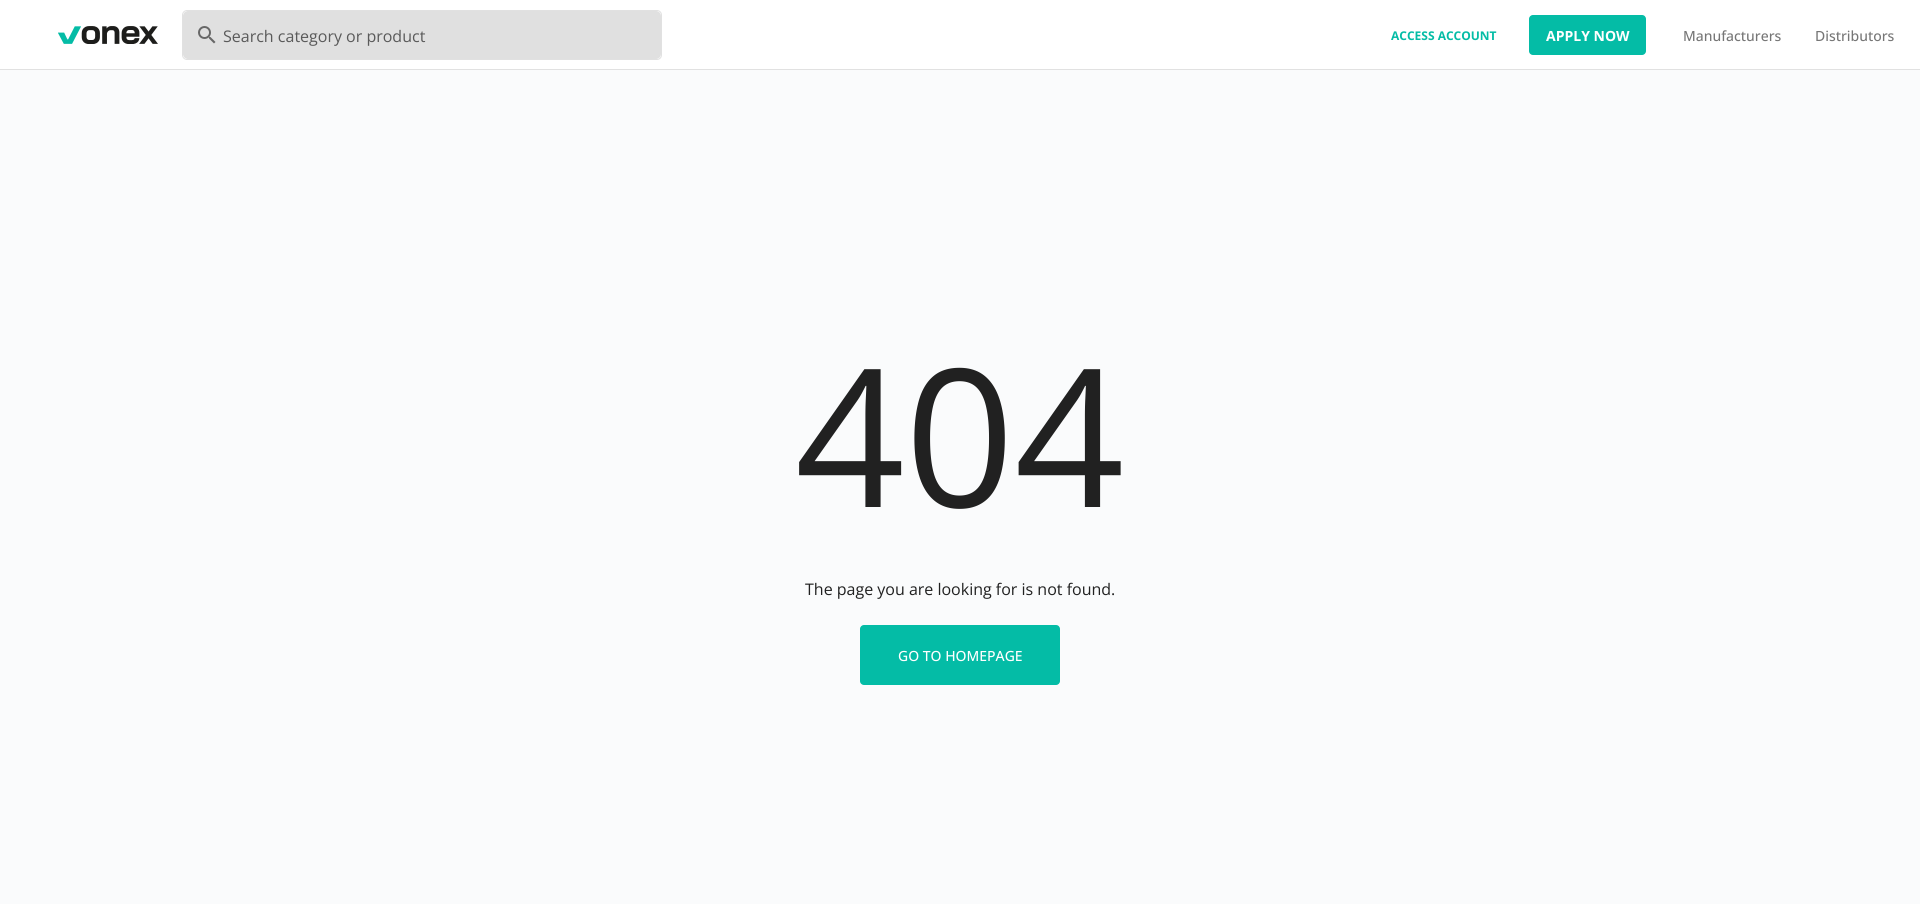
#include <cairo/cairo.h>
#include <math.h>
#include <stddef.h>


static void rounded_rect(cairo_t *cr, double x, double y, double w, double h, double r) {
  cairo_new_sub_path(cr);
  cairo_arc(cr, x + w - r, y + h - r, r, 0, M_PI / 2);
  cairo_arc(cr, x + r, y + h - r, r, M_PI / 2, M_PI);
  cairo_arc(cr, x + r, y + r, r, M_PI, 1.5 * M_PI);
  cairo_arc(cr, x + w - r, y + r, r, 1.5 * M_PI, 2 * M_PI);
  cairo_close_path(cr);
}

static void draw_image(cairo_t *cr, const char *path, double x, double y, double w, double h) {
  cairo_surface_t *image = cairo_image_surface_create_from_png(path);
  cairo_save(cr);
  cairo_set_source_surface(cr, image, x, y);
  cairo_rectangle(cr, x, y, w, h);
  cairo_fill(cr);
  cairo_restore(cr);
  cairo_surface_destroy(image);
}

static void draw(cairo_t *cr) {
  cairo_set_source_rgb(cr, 250 / 255.0, 251 / 255.0, 252 / 255.0);
  cairo_paint(cr);
  cairo_set_source_rgb(cr, 1, 1, 1);
  cairo_rectangle(cr, 0, 0, 1920, 69);
  cairo_fill(cr);
  cairo_set_source_rgb(cr, 225 / 255.0, 225 / 255.0, 225 / 255.0);
  cairo_rectangle(cr, 0, 69, 1920, 1);
  cairo_fill(cr);
  draw_image(cr, "images/1.png", 58, 26, 100, 18);
  rounded_rect(cr, 182.5, 10.5, 479, 49, 4.5);
  cairo_set_line_width(cr, 1);
  cairo_stroke(cr);
  cairo_set_source_rgb(cr, 224 / 255.0, 224 / 255.0, 224 / 255.0);
  rounded_rect(cr, 183, 11, 478, 48, 5);
  cairo_fill(cr);
  draw_image(cr, "images/2.png", 198, 26, 18, 18);
  cairo_set_source_rgb(cr, 4 / 255.0, 188 / 255.0, 166 / 255.0);
  rounded_rect(cr, 1529, 15, 117, 40, 4);
  cairo_fill(cr);
  rounded_rect(cr, 860, 625, 200, 60, 4);
  cairo_fill(cr);
  cairo_select_font_face(cr, "Open Sans", CAIRO_FONT_SLANT_NORMAL, CAIRO_FONT_WEIGHT_NORMAL);
  cairo_set_font_size(cr, 16);
  cairo_set_source_rgb(cr, 90 / 255.0, 90 / 255.0, 90 / 255.0);
  cairo_move_to(cr, 223, 42);
  cairo_show_text(cr, "Search category or product");
  cairo_select_font_face(cr, "Open Sans", CAIRO_FONT_SLANT_NORMAL, CAIRO_FONT_WEIGHT_BOLD);
  cairo_set_font_size(cr, 12);
  cairo_set_source_rgb(cr, 4 / 255.0, 188 / 255.0, 166 / 255.0);
  cairo_move_to(cr, 1391, 40);
  cairo_show_text(cr, "ACCESS ACCOUNT");
  cairo_set_font_size(cr, 14);
  cairo_set_source_rgb(cr, 1, 1, 1);
  cairo_move_to(cr, 1546, 41);
  cairo_show_text(cr, "APPLY NOW");
  cairo_select_font_face(cr, "Open Sans Medium", CAIRO_FONT_SLANT_NORMAL, CAIRO_FONT_WEIGHT_NORMAL);
  cairo_set_source_rgb(cr, 118 / 255.0, 118 / 255.0, 118 / 255.0);
  cairo_move_to(cr, 1683, 41);
  cairo_show_text(cr, "Manufacturers");
  cairo_move_to(cr, 1815, 41);
  cairo_show_text(cr, "Distributors");
  cairo_select_font_face(cr, "Open Sans", CAIRO_FONT_SLANT_NORMAL, CAIRO_FONT_WEIGHT_NORMAL);
  cairo_set_font_size(cr, 192);
  cairo_set_source_rgb(cr, 33 / 255.0, 33 / 255.0, 33 / 255.0);
  cairo_move_to(cr, 795, 507);
  cairo_show_text(cr, "404");
  cairo_set_font_size(cr, 16);
  cairo_move_to(cr, 805, 595);
  cairo_show_text(cr, "The page you are looking for is not found.");
  cairo_select_font_face(cr, "Open Sans Medium", CAIRO_FONT_SLANT_NORMAL, CAIRO_FONT_WEIGHT_NORMAL);
  cairo_set_font_size(cr, 14);
  cairo_set_source_rgb(cr, 1, 1, 1);
  cairo_move_to(cr, 898, 661);
  cairo_show_text(cr, "GO TO HOMEPAGE");
}

int main(void) {
  cairo_surface_t *surface = cairo_image_surface_create(CAIRO_FORMAT_RGB24, 1920, 904);
  cairo_t *cr = cairo_create(surface);
  cairo_font_options_t *options = cairo_font_options_create();
  cairo_font_options_set_hint_metrics(options, CAIRO_HINT_METRICS_OFF);
  cairo_font_options_set_hint_style(options, CAIRO_HINT_STYLE_NONE);
  cairo_set_font_options(cr, options);
  cairo_set_miter_limit(cr, 4);
  draw(cr);
  cairo_surface_write_to_png(surface, "out.png");
  cairo_font_options_destroy(options);
  cairo_destroy(cr);
  cairo_surface_destroy(surface);
  return 0;
}
